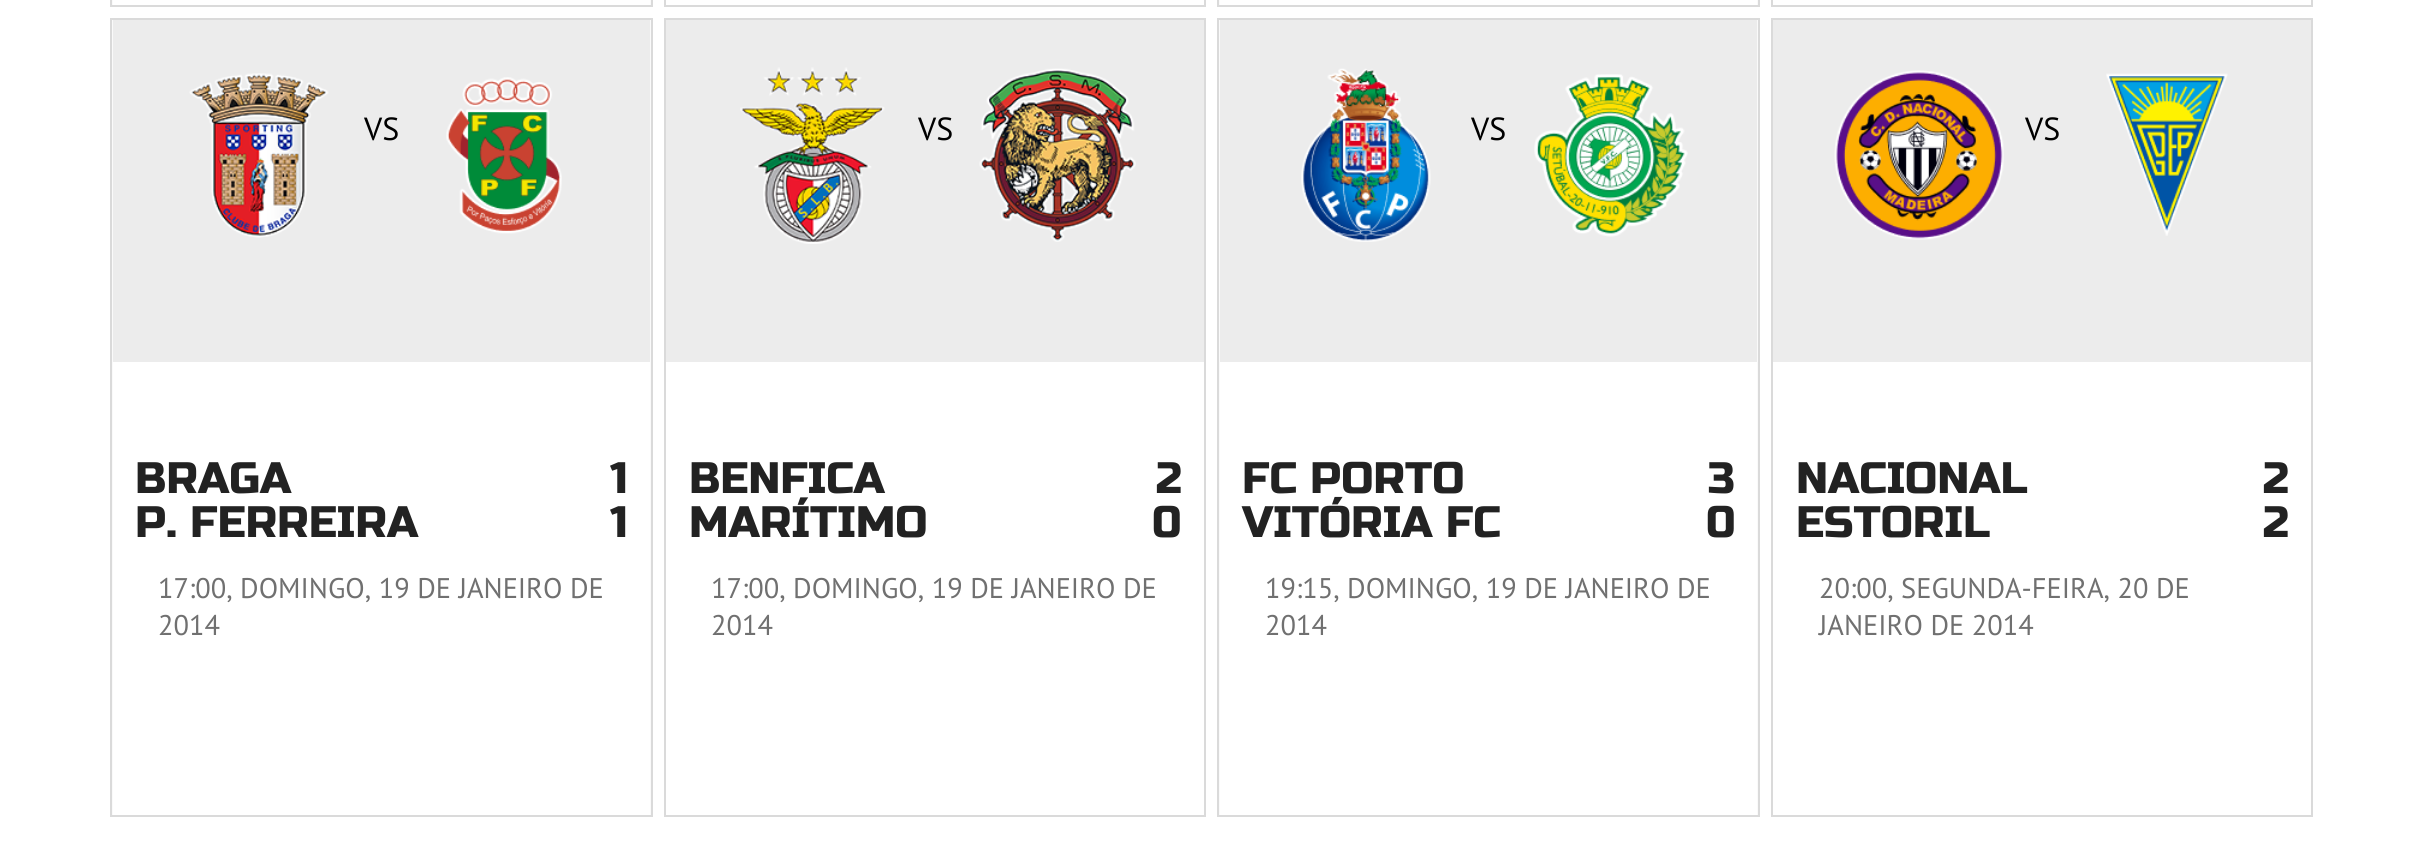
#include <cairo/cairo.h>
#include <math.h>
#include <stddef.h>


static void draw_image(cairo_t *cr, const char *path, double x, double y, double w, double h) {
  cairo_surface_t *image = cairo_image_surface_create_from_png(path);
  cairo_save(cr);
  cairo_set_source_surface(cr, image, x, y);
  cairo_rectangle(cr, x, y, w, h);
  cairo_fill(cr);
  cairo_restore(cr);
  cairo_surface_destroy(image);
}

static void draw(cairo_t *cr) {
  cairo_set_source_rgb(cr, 1, 1, 1);
  cairo_paint(cr);
  cairo_set_source_rgb(cr, 250 / 255.0, 250 / 255.0, 250 / 255.0);
  cairo_rectangle(cr, 111, -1, 541, 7);
  cairo_fill_preserve(cr);
  cairo_set_source_rgb(cr, 218 / 255.0, 218 / 255.0, 218 / 255.0);
  cairo_stroke(cr);
  cairo_set_source_rgb(cr, 1, 1, 1);
  cairo_rectangle(cr, 113, 0, 537, 5);
  cairo_fill(cr);
  cairo_rectangle(cr, 665, -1, 540, 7);
  cairo_set_source_rgb(cr, 218 / 255.0, 218 / 255.0, 218 / 255.0);
  cairo_stroke(cr);
  cairo_set_source_rgb(cr, 250 / 255.0, 250 / 255.0, 250 / 255.0);
  cairo_rectangle(cr, 1218, -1, 541, 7);
  cairo_fill_preserve(cr);
  cairo_set_source_rgb(cr, 218 / 255.0, 218 / 255.0, 218 / 255.0);
  cairo_stroke(cr);
  cairo_set_source_rgb(cr, 1, 1, 1);
  cairo_rectangle(cr, 1220, 0, 537, 5);
  cairo_fill(cr);
  cairo_rectangle(cr, 1772, -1, 540, 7);
  cairo_set_source_rgb(cr, 218 / 255.0, 218 / 255.0, 218 / 255.0);
  cairo_stroke(cr);
  cairo_set_source_rgb(cr, 250 / 255.0, 250 / 255.0, 250 / 255.0);
  cairo_rectangle(cr, 111, 19, 541, 797);
  cairo_fill_preserve(cr);
  cairo_set_source_rgb(cr, 218 / 255.0, 218 / 255.0, 218 / 255.0);
  cairo_stroke(cr);
  cairo_set_source_rgb(cr, 1, 1, 1);
  cairo_rectangle(cr, 113, 362, 537, 453);
  cairo_fill(cr);
  cairo_set_source_rgb(cr, 236 / 255.0, 236 / 255.0, 236 / 255.0);
  cairo_rectangle(cr, 113, 20, 537, 342);
  cairo_fill(cr);
  draw_image(cr, "images/1.png", 189, 73, 140, 165);
  draw_image(cr, "images/2.png", 446, 77, 116, 157);
  cairo_rectangle(cr, 665, 19, 540, 797);
  cairo_set_source_rgb(cr, 218 / 255.0, 218 / 255.0, 218 / 255.0);
  cairo_stroke(cr);
  cairo_set_source_rgb(cr, 236 / 255.0, 236 / 255.0, 236 / 255.0);
  cairo_rectangle(cr, 666, 20, 538, 342);
  cairo_fill(cr);
  draw_image(cr, "images/3.png", 740, 67, 145, 177);
  draw_image(cr, "images/4.png", 979, 68, 157, 174);
  cairo_set_source_rgb(cr, 250 / 255.0, 250 / 255.0, 250 / 255.0);
  cairo_rectangle(cr, 1218, 19, 541, 797);
  cairo_fill_preserve(cr);
  cairo_set_source_rgb(cr, 218 / 255.0, 218 / 255.0, 218 / 255.0);
  cairo_stroke(cr);
  cairo_set_source_rgb(cr, 1, 1, 1);
  cairo_rectangle(cr, 1220, 362, 537, 453);
  cairo_fill(cr);
  cairo_set_source_rgb(cr, 236 / 255.0, 236 / 255.0, 236 / 255.0);
  cairo_rectangle(cr, 1220, 20, 537, 342);
  cairo_fill(cr);
  draw_image(cr, "images/5.png", 1301, 68, 130, 174);
  draw_image(cr, "images/6.png", 1534, 74, 154, 163);
  cairo_rectangle(cr, 1772, 19, 540, 797);
  cairo_set_source_rgb(cr, 218 / 255.0, 218 / 255.0, 218 / 255.0);
  cairo_stroke(cr);
  cairo_set_source_rgb(cr, 236 / 255.0, 236 / 255.0, 236 / 255.0);
  cairo_rectangle(cr, 1773, 20, 538, 342);
  cairo_fill(cr);
  draw_image(cr, "images/7.png", 1834, 70, 170, 170);
  draw_image(cr, "images/8.png", 2106, 73, 122, 163);
  cairo_select_font_face(cr, "PT Sans", CAIRO_FONT_SLANT_NORMAL, CAIRO_FONT_WEIGHT_NORMAL);
  cairo_set_font_size(cr, 32);
  cairo_set_source_rgb(cr, 0, 0, 0);
  cairo_move_to(cr, 364, 140);
  cairo_show_text(cr, "VS");
  cairo_select_font_face(cr, "Russo One", CAIRO_FONT_SLANT_NORMAL, CAIRO_FONT_WEIGHT_NORMAL);
  cairo_set_font_size(cr, 44);
  cairo_set_source_rgb(cr, 34 / 255.0, 34 / 255.0, 34 / 255.0);
  cairo_move_to(cr, 135, 493);
  cairo_show_text(cr, "BRAGA");
  cairo_move_to(cr, 610, 493);
  cairo_show_text(cr, "1");
  cairo_move_to(cr, 135, 537);
  cairo_show_text(cr, "P. FERREIRA");
  cairo_move_to(cr, 610, 537);
  cairo_show_text(cr, "1");
  cairo_select_font_face(cr, "PT Sans", CAIRO_FONT_SLANT_NORMAL, CAIRO_FONT_WEIGHT_NORMAL);
  cairo_set_font_size(cr, 28.4);
  cairo_set_source_rgb(cr, 112 / 255.0, 112 / 255.0, 112 / 255.0);
  cairo_move_to(cr, 158, 598);
  cairo_show_text(cr, "17:00, DOMINGO, 19 DE JANEIRO DE");
  cairo_move_to(cr, 158, 635);
  cairo_show_text(cr, "2014");
  cairo_set_font_size(cr, 32);
  cairo_set_source_rgb(cr, 0, 0, 0);
  cairo_move_to(cr, 918, 140);
  cairo_show_text(cr, "VS");
  cairo_select_font_face(cr, "Russo One", CAIRO_FONT_SLANT_NORMAL, CAIRO_FONT_WEIGHT_NORMAL);
  cairo_set_font_size(cr, 44);
  cairo_set_source_rgb(cr, 34 / 255.0, 34 / 255.0, 34 / 255.0);
  cairo_move_to(cr, 689, 493);
  cairo_show_text(cr, "BENFICA");
  cairo_move_to(cr, 1156, 493);
  cairo_show_text(cr, "2");
  cairo_move_to(cr, 689, 537);
  cairo_show_text(cr, "MARÍTIMO");
  cairo_move_to(cr, 1152, 537);
  cairo_show_text(cr, "0");
  cairo_select_font_face(cr, "PT Sans", CAIRO_FONT_SLANT_NORMAL, CAIRO_FONT_WEIGHT_NORMAL);
  cairo_set_font_size(cr, 28.4);
  cairo_set_source_rgb(cr, 112 / 255.0, 112 / 255.0, 112 / 255.0);
  cairo_move_to(cr, 711, 598);
  cairo_show_text(cr, "17:00, DOMINGO, 19 DE JANEIRO DE");
  cairo_move_to(cr, 711, 635);
  cairo_show_text(cr, "2014");
  cairo_set_font_size(cr, 32);
  cairo_set_source_rgb(cr, 0, 0, 0);
  cairo_move_to(cr, 1471, 140);
  cairo_show_text(cr, "VS");
  cairo_select_font_face(cr, "Russo One", CAIRO_FONT_SLANT_NORMAL, CAIRO_FONT_WEIGHT_NORMAL);
  cairo_set_font_size(cr, 44);
  cairo_set_source_rgb(cr, 34 / 255.0, 34 / 255.0, 34 / 255.0);
  cairo_move_to(cr, 1242, 493);
  cairo_show_text(cr, "FC PORTO");
  cairo_move_to(cr, 1708, 493);
  cairo_show_text(cr, "3");
  cairo_move_to(cr, 1242, 537);
  cairo_show_text(cr, "VITÓRIA FC");
  cairo_move_to(cr, 1706, 537);
  cairo_show_text(cr, "0");
  cairo_select_font_face(cr, "PT Sans", CAIRO_FONT_SLANT_NORMAL, CAIRO_FONT_WEIGHT_NORMAL);
  cairo_set_font_size(cr, 28.4);
  cairo_set_source_rgb(cr, 112 / 255.0, 112 / 255.0, 112 / 255.0);
  cairo_move_to(cr, 1265, 598);
  cairo_show_text(cr, "19:15, DOMINGO, 19 DE JANEIRO DE");
  cairo_move_to(cr, 1265, 635);
  cairo_show_text(cr, "2014");
  cairo_set_font_size(cr, 32);
  cairo_set_source_rgb(cr, 0, 0, 0);
  cairo_move_to(cr, 2025, 140);
  cairo_show_text(cr, "VS");
  cairo_select_font_face(cr, "Russo One", CAIRO_FONT_SLANT_NORMAL, CAIRO_FONT_WEIGHT_NORMAL);
  cairo_set_font_size(cr, 44);
  cairo_set_source_rgb(cr, 34 / 255.0, 34 / 255.0, 34 / 255.0);
  cairo_move_to(cr, 1796, 493);
  cairo_show_text(cr, "NACIONAL");
  cairo_move_to(cr, 2263, 493);
  cairo_show_text(cr, "2");
  cairo_move_to(cr, 1796, 537);
  cairo_show_text(cr, "ESTORIL");
  cairo_move_to(cr, 2263, 537);
  cairo_show_text(cr, "2");
  cairo_select_font_face(cr, "PT Sans", CAIRO_FONT_SLANT_NORMAL, CAIRO_FONT_WEIGHT_NORMAL);
  cairo_set_font_size(cr, 28.4);
  cairo_set_source_rgb(cr, 112 / 255.0, 112 / 255.0, 112 / 255.0);
  cairo_move_to(cr, 1819, 598);
  cairo_show_text(cr, "20:00, SEGUNDA-FEIRA, 20 DE");
  cairo_move_to(cr, 1819, 635);
  cairo_show_text(cr, "JANEIRO DE 2014");
}

int main(void) {
  cairo_surface_t *surface = cairo_image_surface_create(CAIRO_FORMAT_RGB24, 2424, 860);
  cairo_t *cr = cairo_create(surface);
  cairo_font_options_t *options = cairo_font_options_create();
  cairo_font_options_set_hint_metrics(options, CAIRO_HINT_METRICS_OFF);
  cairo_font_options_set_hint_style(options, CAIRO_HINT_STYLE_NONE);
  cairo_set_font_options(cr, options);
  cairo_set_miter_limit(cr, 4);
  draw(cr);
  cairo_surface_write_to_png(surface, "out.png");
  cairo_font_options_destroy(options);
  cairo_destroy(cr);
  cairo_surface_destroy(surface);
  return 0;
}
